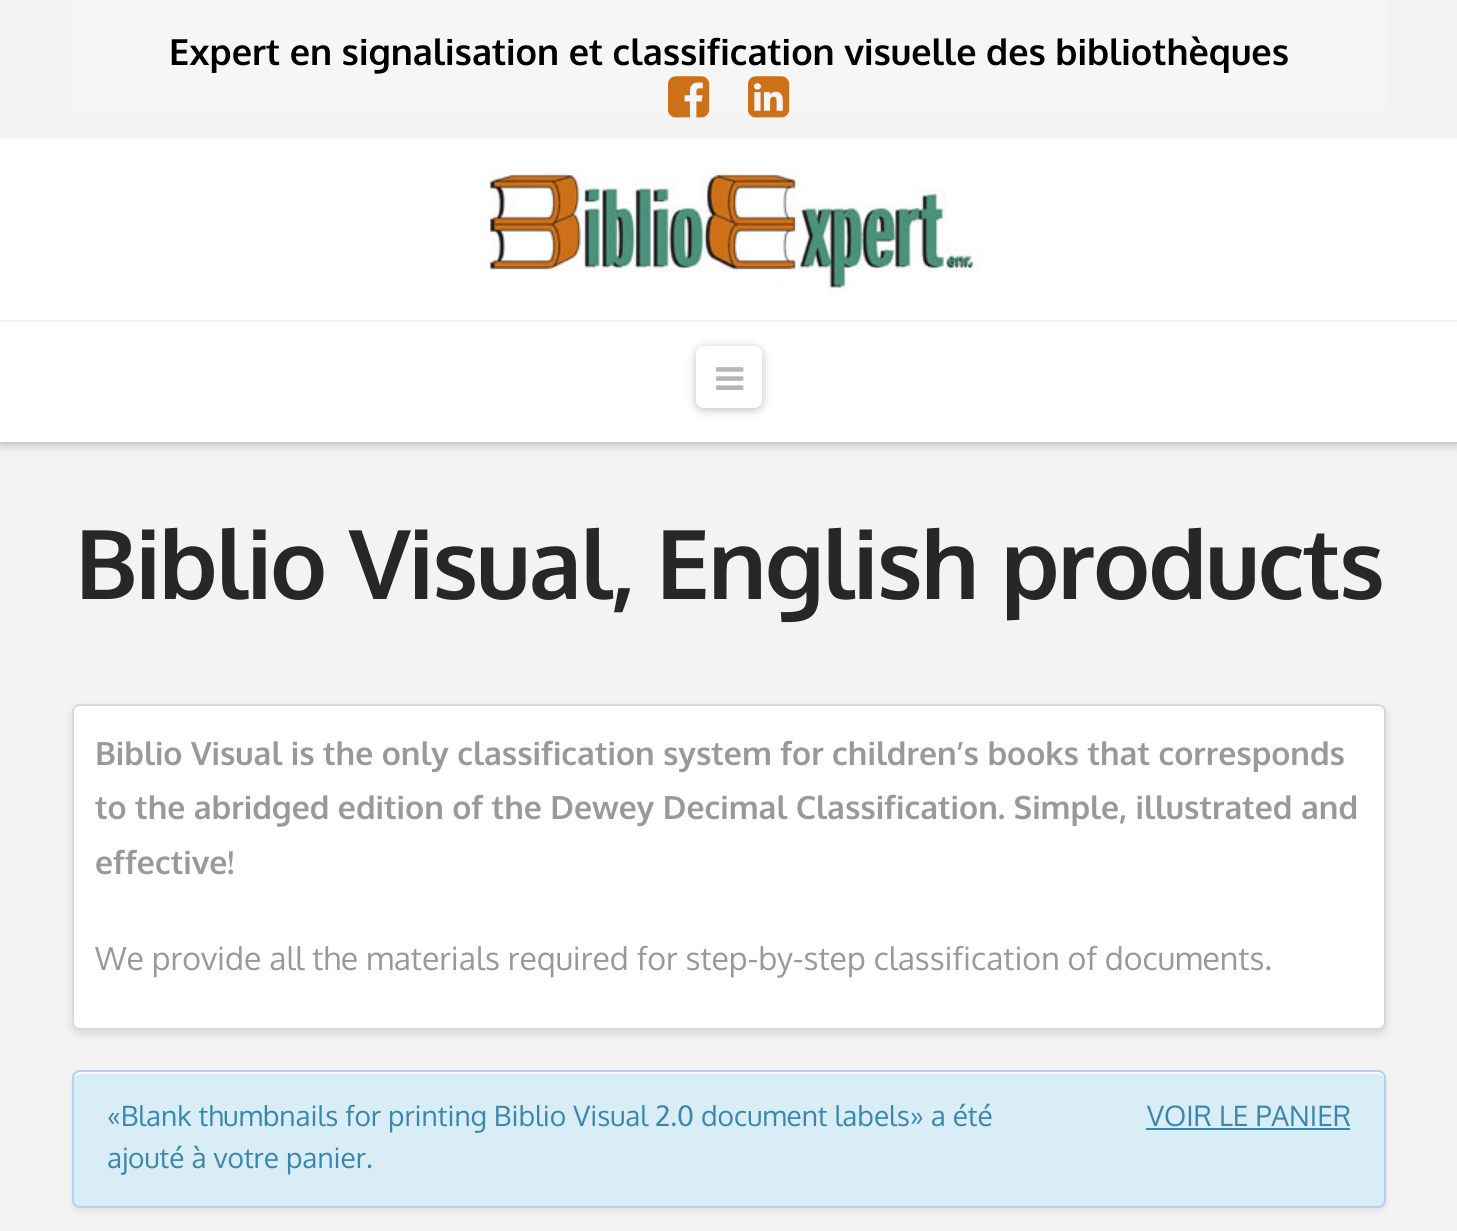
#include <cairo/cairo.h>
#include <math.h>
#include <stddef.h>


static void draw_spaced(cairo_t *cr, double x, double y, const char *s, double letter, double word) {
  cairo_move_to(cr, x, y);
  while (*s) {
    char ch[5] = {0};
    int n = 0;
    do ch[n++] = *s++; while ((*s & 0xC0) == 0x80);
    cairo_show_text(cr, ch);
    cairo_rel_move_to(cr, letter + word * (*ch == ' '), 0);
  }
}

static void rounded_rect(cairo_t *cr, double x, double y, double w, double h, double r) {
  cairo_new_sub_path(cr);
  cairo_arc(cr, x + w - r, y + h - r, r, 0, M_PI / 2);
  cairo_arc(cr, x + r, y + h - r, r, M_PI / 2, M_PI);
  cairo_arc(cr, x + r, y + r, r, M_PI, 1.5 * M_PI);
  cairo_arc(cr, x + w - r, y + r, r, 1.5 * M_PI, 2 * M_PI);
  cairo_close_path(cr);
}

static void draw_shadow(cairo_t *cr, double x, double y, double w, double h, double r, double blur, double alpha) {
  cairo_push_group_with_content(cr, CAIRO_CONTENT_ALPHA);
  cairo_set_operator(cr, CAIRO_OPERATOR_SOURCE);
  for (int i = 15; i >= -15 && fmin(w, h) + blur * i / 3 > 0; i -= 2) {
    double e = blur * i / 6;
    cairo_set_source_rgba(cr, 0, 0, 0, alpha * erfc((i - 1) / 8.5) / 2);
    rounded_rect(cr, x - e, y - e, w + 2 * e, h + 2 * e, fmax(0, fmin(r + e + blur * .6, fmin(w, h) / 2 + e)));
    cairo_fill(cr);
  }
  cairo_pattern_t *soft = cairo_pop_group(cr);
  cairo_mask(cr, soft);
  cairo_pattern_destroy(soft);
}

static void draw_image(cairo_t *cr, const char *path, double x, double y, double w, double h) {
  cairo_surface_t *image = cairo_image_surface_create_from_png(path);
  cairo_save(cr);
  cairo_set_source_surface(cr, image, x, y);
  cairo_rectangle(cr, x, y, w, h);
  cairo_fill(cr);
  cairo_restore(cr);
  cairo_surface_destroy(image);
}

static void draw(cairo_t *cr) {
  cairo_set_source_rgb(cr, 243 / 255.0, 243 / 255.0, 243 / 255.0);
  cairo_paint(cr);
  cairo_set_source_rgb(cr, 246 / 255.0, 246 / 255.0, 246 / 255.0);
  cairo_new_path(cr);
  cairo_move_to(cr, 72, 0);
  cairo_line_to(cr, 1386, 0);
  cairo_line_to(cr, 1386, 104);
  cairo_curve_to(cr, 1386, 108.5, 1382.5, 112, 1378, 112);
  cairo_line_to(cr, 80, 112);
  cairo_curve_to(cr, 75.5, 112, 72, 108.5, 72, 104);
  cairo_close_path(cr);
  cairo_fill(cr);
  draw_image(cr, "images/1.png", 668, 76, 42, 42);
  draw_image(cr, "images/2.png", 748, 76, 42, 42);
  cairo_set_source_rgb(cr, 1, 1, 1);
  cairo_rectangle(cr, 0, 138, 1457, 182);
  cairo_fill(cr);
  draw_image(cr, "images/3.png", 480, 168, 500, 124);
  cairo_set_source_rgb(cr, 0, 0, 0);
  draw_shadow(cr, 0, 326, 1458, 122, 0, 3.5, 0.13);
  cairo_set_source_rgb(cr, 1, 1, 1);
  cairo_rectangle(cr, 0, 322, 1457, 120);
  cairo_fill(cr);
  cairo_set_source_rgb(cr, 204 / 255.0, 204 / 255.0, 204 / 255.0);
  cairo_rectangle(cr, 0, 442, 1457, 2);
  cairo_fill(cr);
  cairo_set_source_rgb(cr, 0, 0, 0);
  draw_shadow(cr, 696, 348, 66, 62, 8, 5, 0.25);
  cairo_set_source_rgb(cr, 1, 1, 1);
  rounded_rect(cr, 696, 346, 66, 62, 8);
  cairo_fill(cr);
  draw_image(cr, "images/4.png", 716, 367, 28, 23);
  cairo_set_source_rgb(cr, 0, 0, 0);
  draw_shadow(cr, 72, 708, 1314, 326, 8, 4.5, 0.12);
  cairo_set_source_rgb(cr, 1, 1, 1);
  rounded_rect(cr, 72, 704, 1314, 326, 8);
  cairo_fill(cr);
  rounded_rect(cr, 73, 705, 1312, 324, 7);
  cairo_set_source_rgba(cr, 0, 0, 0, 0.15);
  cairo_stroke(cr);
  cairo_set_source_rgb(cr, 0, 0, 0);
  draw_shadow(cr, 72, 1074, 1314, 138, 8, 3, 0.07);
  cairo_set_source_rgb(cr, 217 / 255.0, 237 / 255.0, 247 / 255.0);
  rounded_rect(cr, 72, 1070, 1314, 138, 8);
  cairo_fill(cr);
  cairo_set_source_rgb(cr, 247 / 255.0, 251 / 255.0, 253 / 255.0);
  cairo_new_path(cr);
  cairo_move_to(cr, 80, 1074);
  cairo_line_to(cr, 1378, 1074);
  cairo_curve_to(cr, 1381, 1074, 1384, 1077, 1384, 1080);
  cairo_curve_to(cr, 1384, 1076, 1383, 1072, 1378, 1072);
  cairo_line_to(cr, 80, 1072);
  cairo_curve_to(cr, 75, 1072, 74, 1076, 74, 1080);
  cairo_curve_to(cr, 74, 1077, 77, 1074, 80, 1074);
  cairo_close_path(cr);
  cairo_fill(cr);
  rounded_rect(cr, 73, 1071, 1312, 136, 7);
  cairo_set_source_rgb(cr, 179 / 255.0, 209 / 255.0, 239 / 255.0);
  cairo_stroke(cr);
  cairo_set_source_rgb(cr, 58 / 255.0, 135 / 255.0, 173 / 255.0);
  cairo_rectangle(cr, 1146, 1128, 204, 2);
  cairo_fill(cr);
  cairo_select_font_face(cr, "Oxygen", CAIRO_FONT_SLANT_NORMAL, CAIRO_FONT_WEIGHT_BOLD);
  cairo_set_font_size(cr, 36);
  cairo_set_source_rgb(cr, 0, 0, 0);
  cairo_move_to(cr, 169, 65);
  cairo_show_text(cr, "Expert en signalisation et classification visuelle des bibliothèques");
  cairo_set_font_size(cr, 96);
  cairo_set_source_rgb(cr, 39 / 255.0, 39 / 255.0, 39 / 255.0);
  draw_spaced(cr, 75, 599, "Biblio Visual, English products", -2, 0);
  cairo_set_font_size(cr, 32);
  cairo_set_source_rgb(cr, 153 / 255.0, 153 / 255.0, 153 / 255.0);
  cairo_move_to(cr, 95, 765);
  cairo_show_text(cr, "Biblio Visual is the only classification system for children’s books that corresponds");
  cairo_move_to(cr, 95, 819);
  cairo_show_text(cr, "to the abridged edition of the Dewey Decimal Classification. Simple, illustrated and");
  cairo_move_to(cr, 95, 874);
  cairo_show_text(cr, "effective!");
  cairo_select_font_face(cr, "Oxygen", CAIRO_FONT_SLANT_NORMAL, CAIRO_FONT_WEIGHT_NORMAL);
  cairo_move_to(cr, 95, 970);
  cairo_show_text(cr, "We provide all the materials required for step-by-step classification of documents.");
  cairo_set_font_size(cr, 28);
  cairo_set_source_rgb(cr, 58 / 255.0, 135 / 255.0, 173 / 255.0);
  cairo_move_to(cr, 107, 1126);
  cairo_show_text(cr, "«Blank thumbnails for printing Biblio Visual 2.0 document labels» a été");
  cairo_move_to(cr, 1147, 1126);
  cairo_show_text(cr, "VOIR LE PANIER");
  cairo_move_to(cr, 107, 1168);
  cairo_show_text(cr, "ajouté à votre panier.");
}

int main(void) {
  cairo_surface_t *surface = cairo_image_surface_create(CAIRO_FORMAT_RGB24, 1457, 1231);
  cairo_t *cr = cairo_create(surface);
  cairo_font_options_t *options = cairo_font_options_create();
  cairo_font_options_set_hint_metrics(options, CAIRO_HINT_METRICS_OFF);
  cairo_font_options_set_hint_style(options, CAIRO_HINT_STYLE_NONE);
  cairo_set_font_options(cr, options);
  cairo_set_miter_limit(cr, 4);
  draw(cr);
  cairo_surface_write_to_png(surface, "out.png");
  cairo_font_options_destroy(options);
  cairo_destroy(cr);
  cairo_surface_destroy(surface);
  return 0;
}
